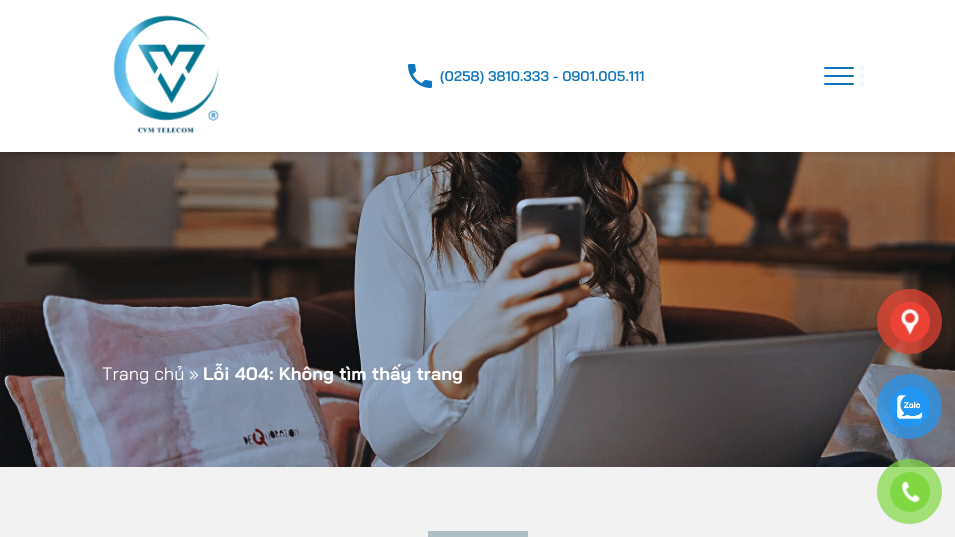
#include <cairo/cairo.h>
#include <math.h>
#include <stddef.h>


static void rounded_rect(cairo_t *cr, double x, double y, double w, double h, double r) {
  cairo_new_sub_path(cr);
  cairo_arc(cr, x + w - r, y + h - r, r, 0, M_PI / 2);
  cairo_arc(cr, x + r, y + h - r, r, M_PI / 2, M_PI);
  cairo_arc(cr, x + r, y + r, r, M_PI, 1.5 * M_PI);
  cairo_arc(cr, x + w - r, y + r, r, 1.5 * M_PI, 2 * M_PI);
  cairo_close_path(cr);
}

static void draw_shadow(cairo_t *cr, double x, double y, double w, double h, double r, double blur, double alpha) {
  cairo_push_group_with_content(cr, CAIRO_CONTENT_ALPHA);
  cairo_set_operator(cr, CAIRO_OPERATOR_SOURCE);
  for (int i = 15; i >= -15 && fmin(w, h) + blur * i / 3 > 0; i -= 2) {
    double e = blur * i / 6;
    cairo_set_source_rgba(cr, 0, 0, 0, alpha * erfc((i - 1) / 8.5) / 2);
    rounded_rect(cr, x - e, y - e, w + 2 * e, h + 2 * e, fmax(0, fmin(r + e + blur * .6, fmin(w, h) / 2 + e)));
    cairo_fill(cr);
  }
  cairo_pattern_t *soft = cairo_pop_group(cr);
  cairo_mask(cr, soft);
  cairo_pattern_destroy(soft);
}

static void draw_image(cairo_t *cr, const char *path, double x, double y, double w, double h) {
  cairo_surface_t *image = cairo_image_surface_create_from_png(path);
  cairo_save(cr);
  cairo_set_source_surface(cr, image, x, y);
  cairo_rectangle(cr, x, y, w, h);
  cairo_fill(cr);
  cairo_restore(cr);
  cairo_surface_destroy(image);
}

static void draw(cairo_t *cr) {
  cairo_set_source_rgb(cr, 1, 1, 1);
  cairo_paint(cr);
  draw_image(cr, "images/3.png", 0, 152, 955, 315);
  cairo_save(cr);
  cairo_rectangle(cr, 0, 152, 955, 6);
  cairo_clip(cr);
  cairo_set_source_rgb(cr, 0, 0, 0);
  draw_shadow(cr, 1, 5, 953, 150, 0, 3, 0.1);
  cairo_restore(cr);
  draw_image(cr, "images/1.png", 113, 15, 106, 119);
  draw_image(cr, "images/2.png", 408, 64, 24, 24);
  cairo_set_source_rgb(cr, 15 / 255.0, 117 / 255.0, 188 / 255.0);
  rounded_rect(cr, 824, 67, 30, 2, 1);
  cairo_fill(cr);
  rounded_rect(cr, 824, 75, 30, 2, 1);
  cairo_fill(cr);
  rounded_rect(cr, 824, 83, 30, 2, 1);
  cairo_fill(cr);
  cairo_set_source_rgba(cr, 234 / 255.0, 67 / 255.0, 53 / 255.0, 0.7);
  cairo_arc(cr, 909.5, 321.5, 32.5, 0, 2 * M_PI);
  cairo_fill(cr);
  cairo_set_source_rgb(cr, 234 / 255.0, 67 / 255.0, 53 / 255.0);
  cairo_arc(cr, 910, 322, 20, 0, 2 * M_PI);
  cairo_fill(cr);
  draw_image(cr, "images/4.png", 901, 309, 18, 26);
  cairo_set_source_rgba(cr, 33 / 255.0, 150 / 255.0, 243 / 255.0, 0.7);
  cairo_arc(cr, 909.5, 406.5, 32.5, 0, 2 * M_PI);
  cairo_fill(cr);
  cairo_set_source_rgb(cr, 33 / 255.0, 150 / 255.0, 243 / 255.0);
  cairo_arc(cr, 910, 407, 20, 0, 2 * M_PI);
  cairo_fill(cr);
  draw_image(cr, "images/5.png", 897, 395, 26, 24);
  cairo_set_source_rgb(cr, 242 / 255.0, 242 / 255.0, 242 / 255.0);
  cairo_rectangle(cr, 0, 467, 955, 70);
  cairo_fill(cr);
  cairo_set_source_rgba(cr, 129 / 255.0, 215 / 255.0, 66 / 255.0, 0.7);
  cairo_arc(cr, 909.5, 491.5, 32.5, 0, 2 * M_PI);
  cairo_fill(cr);
  cairo_set_source_rgb(cr, 129 / 255.0, 215 / 255.0, 66 / 255.0);
  cairo_arc(cr, 910, 492, 20, 0, 2 * M_PI);
  cairo_fill(cr);
  draw_image(cr, "images/6.png", 901, 481, 19, 22);
  cairo_set_source_rgb(cr, 176 / 255.0, 190 / 255.0, 197 / 255.0);
  cairo_rectangle(cr, 428, 531, 100, 6);
  cairo_fill(cr);
  cairo_select_font_face(cr, "Bai Jamjuree SemiBold", CAIRO_FONT_SLANT_NORMAL, CAIRO_FONT_WEIGHT_NORMAL);
  cairo_set_font_size(cr, 14);
  cairo_set_source_rgb(cr, 15 / 255.0, 117 / 255.0, 188 / 255.0);
  cairo_move_to(cr, 440, 81);
  cairo_show_text(cr, "(0258) 3810.333 - 0901.005.111");
  cairo_select_font_face(cr, "Bai Jamjuree", CAIRO_FONT_SLANT_NORMAL, CAIRO_FONT_WEIGHT_NORMAL);
  cairo_set_font_size(cr, 18);
  cairo_set_source_rgb(cr, 1, 1, 1);
  cairo_move_to(cr, 102, 380);
  cairo_show_text(cr, "Trang chủ »");
  cairo_select_font_face(cr, "Bai Jamjuree", CAIRO_FONT_SLANT_NORMAL, CAIRO_FONT_WEIGHT_BOLD);
  cairo_move_to(cr, 203, 380);
  cairo_show_text(cr, "Lỗi 404: Không tìm thấy trang");
}

int main(void) {
  cairo_surface_t *surface = cairo_image_surface_create(CAIRO_FORMAT_RGB24, 955, 537);
  cairo_t *cr = cairo_create(surface);
  cairo_font_options_t *options = cairo_font_options_create();
  cairo_font_options_set_hint_metrics(options, CAIRO_HINT_METRICS_OFF);
  cairo_font_options_set_hint_style(options, CAIRO_HINT_STYLE_NONE);
  cairo_set_font_options(cr, options);
  cairo_set_miter_limit(cr, 4);
  draw(cr);
  cairo_surface_write_to_png(surface, "out.png");
  cairo_font_options_destroy(options);
  cairo_destroy(cr);
  cairo_surface_destroy(surface);
  return 0;
}
